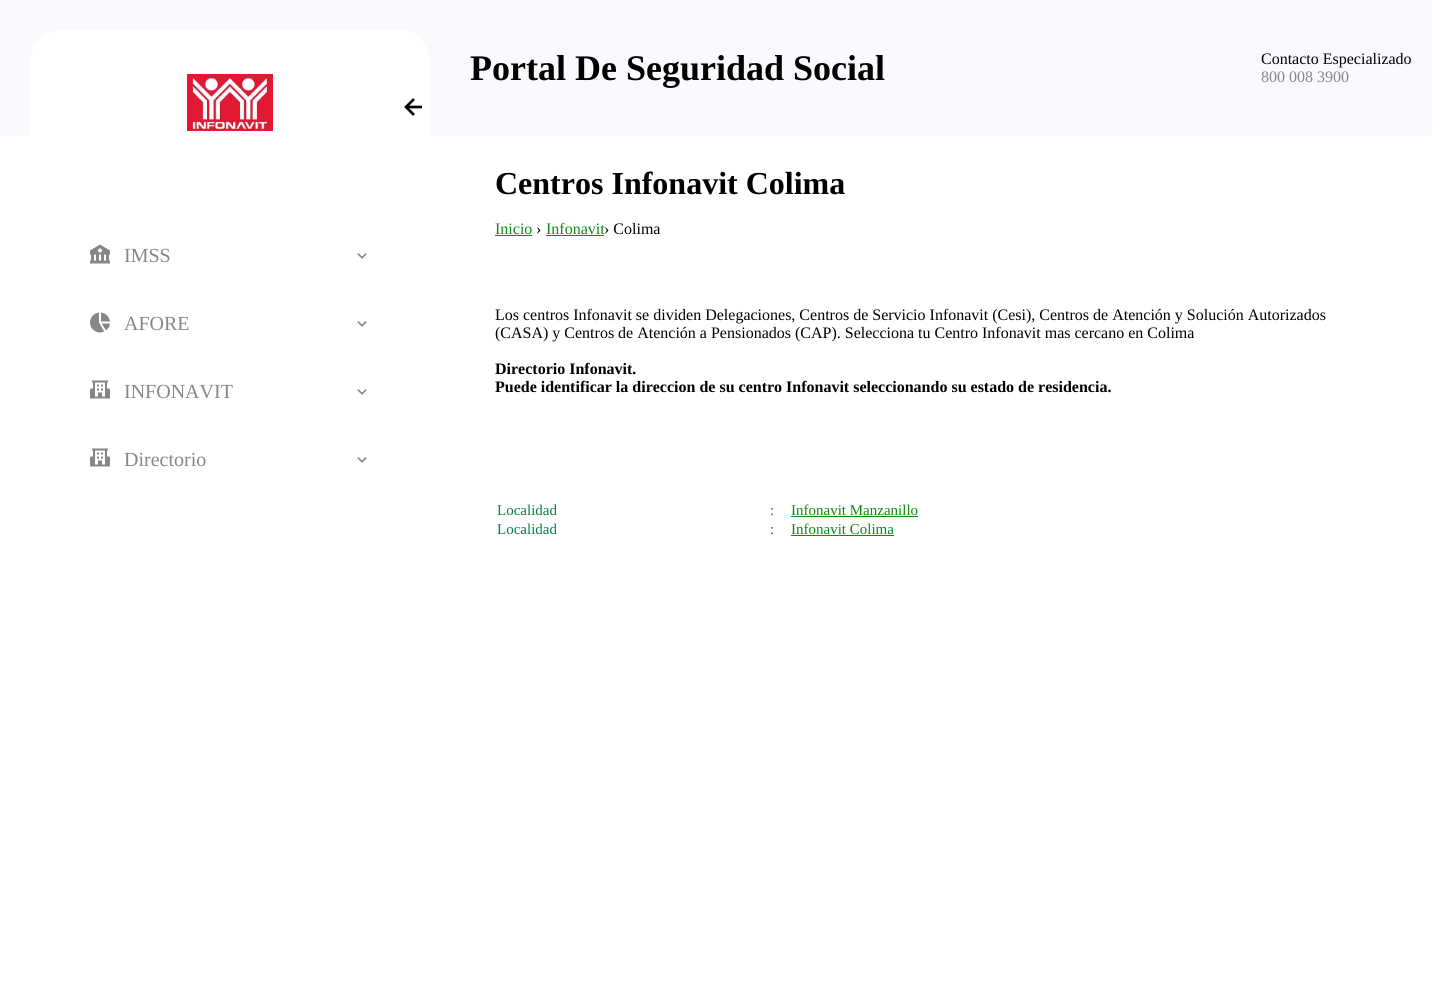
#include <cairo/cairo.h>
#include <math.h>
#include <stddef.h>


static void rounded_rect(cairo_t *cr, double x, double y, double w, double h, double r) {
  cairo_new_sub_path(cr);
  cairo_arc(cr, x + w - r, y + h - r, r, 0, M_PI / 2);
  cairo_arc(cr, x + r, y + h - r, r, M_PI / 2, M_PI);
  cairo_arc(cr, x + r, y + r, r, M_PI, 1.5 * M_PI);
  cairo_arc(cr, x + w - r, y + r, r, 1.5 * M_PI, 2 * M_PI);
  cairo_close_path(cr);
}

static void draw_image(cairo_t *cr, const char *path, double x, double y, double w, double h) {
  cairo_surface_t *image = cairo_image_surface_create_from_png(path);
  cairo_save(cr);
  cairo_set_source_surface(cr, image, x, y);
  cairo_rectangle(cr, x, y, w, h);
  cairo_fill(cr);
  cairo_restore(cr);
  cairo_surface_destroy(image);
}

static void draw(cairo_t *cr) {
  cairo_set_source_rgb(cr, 1, 1, 1);
  cairo_paint(cr);
  cairo_set_source_rgb(cr, 249 / 255.0, 250 / 255.0, 254 / 255.0);
  cairo_rectangle(cr, 0, 0, 1432, 136);
  cairo_fill(cr);
  cairo_set_source_rgb(cr, 1, 1, 1);
  rounded_rect(cr, 30, 30, 400, 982, 30);
  cairo_fill(cr);
  draw_image(cr, "images/1.png", 187, 74, 86, 57);
  draw_image(cr, "images/2.png", 404, 98, 18, 18);
  draw_image(cr, "images/3.png", 90, 244, 20, 20);
  draw_image(cr, "images/4.png", 357, 253, 10, 6);
  draw_image(cr, "images/5.png", 90, 312, 20, 21);
  draw_image(cr, "images/4.png", 357, 321, 10, 6);
  draw_image(cr, "images/6.png", 90, 380, 20, 19);
  draw_image(cr, "images/4.png", 357, 389, 10, 6);
  draw_image(cr, "images/6.png", 90, 448, 20, 19);
  draw_image(cr, "images/4.png", 357, 457, 10, 6);
  cairo_set_source_rgb(cr, 10 / 255.0, 138 / 255.0, 21 / 255.0);
  cairo_rectangle(cr, 495, 235, 37, 1);
  cairo_fill(cr);
  cairo_rectangle(cr, 546, 235, 58, 1);
  cairo_fill(cr);
  cairo_rectangle(cr, 791, 516, 127, 1);
  cairo_fill(cr);
  cairo_rectangle(cr, 791, 535, 103, 1);
  cairo_fill(cr);
  cairo_select_font_face(cr, "Liberation Serif", CAIRO_FONT_SLANT_NORMAL, CAIRO_FONT_WEIGHT_BOLD);
  cairo_set_font_size(cr, 36);
  cairo_set_source_rgb(cr, 0, 0, 0);
  cairo_move_to(cr, 470, 80);
  cairo_show_text(cr, "Portal De Seguridad Social");
  cairo_select_font_face(cr, "Liberation Serif", CAIRO_FONT_SLANT_NORMAL, CAIRO_FONT_WEIGHT_NORMAL);
  cairo_set_font_size(cr, 16);
  cairo_move_to(cr, 1261, 64);
  cairo_show_text(cr, "Contacto Especializado");
  cairo_set_source_rgb(cr, 135 / 255.0, 135 / 255.0, 135 / 255.0);
  cairo_move_to(cr, 1261, 82);
  cairo_show_text(cr, "800 008 3900");
  cairo_set_font_size(cr, 20);
  cairo_move_to(cr, 124, 262);
  cairo_show_text(cr, "IMSS");
  cairo_move_to(cr, 124, 330);
  cairo_show_text(cr, "AFORE");
  cairo_move_to(cr, 124, 398);
  cairo_show_text(cr, "INFONAVIT");
  cairo_move_to(cr, 124, 466);
  cairo_show_text(cr, "Directorio");
  cairo_select_font_face(cr, "Liberation Serif", CAIRO_FONT_SLANT_NORMAL, CAIRO_FONT_WEIGHT_BOLD);
  cairo_set_font_size(cr, 32);
  cairo_set_source_rgb(cr, 0, 0, 0);
  cairo_move_to(cr, 495, 194);
  cairo_show_text(cr, "Centros Infonavit Colima");
  cairo_select_font_face(cr, "Liberation Serif", CAIRO_FONT_SLANT_NORMAL, CAIRO_FONT_WEIGHT_NORMAL);
  cairo_set_font_size(cr, 16);
  cairo_set_source_rgb(cr, 10 / 255.0, 138 / 255.0, 21 / 255.0);
  cairo_move_to(cr, 495, 234);
  cairo_show_text(cr, "Inicio");
  cairo_set_source_rgb(cr, 0, 0, 0);
  cairo_move_to(cr, 536, 234);
  cairo_show_text(cr, "›");
  cairo_set_source_rgb(cr, 10 / 255.0, 138 / 255.0, 21 / 255.0);
  cairo_move_to(cr, 546, 234);
  cairo_show_text(cr, "Infonavit");
  cairo_set_source_rgb(cr, 0, 0, 0);
  cairo_move_to(cr, 604, 234);
  cairo_show_text(cr, "› Colima");
  cairo_move_to(cr, 495, 320);
  cairo_show_text(cr, "Los centros Infonavit se dividen Delegaciones, Centros de Servicio Infonavit (Cesi), Centros de Atención y Solución Autorizados");
  cairo_move_to(cr, 495, 338);
  cairo_show_text(cr, "(CASA) y Centros de Atención a Pensionados (CAP). Selecciona tu Centro Infonavit mas cercano en Colima");
  cairo_select_font_face(cr, "Liberation Serif", CAIRO_FONT_SLANT_NORMAL, CAIRO_FONT_WEIGHT_BOLD);
  cairo_move_to(cr, 495, 374);
  cairo_show_text(cr, "Directorio Infonavit.");
  cairo_move_to(cr, 495, 392);
  cairo_show_text(cr, "Puede identificar la direccion de su centro Infonavit seleccionando su estado de residencia.");
  cairo_select_font_face(cr, "Liberation Serif", CAIRO_FONT_SLANT_NORMAL, CAIRO_FONT_WEIGHT_NORMAL);
  cairo_set_font_size(cr, 15);
  cairo_set_source_rgb(cr, 0, 132 / 255.0, 62 / 255.0);
  cairo_move_to(cr, 497, 515);
  cairo_show_text(cr, "Localidad");
  cairo_move_to(cr, 770, 515);
  cairo_show_text(cr, ":");
  cairo_set_source_rgb(cr, 10 / 255.0, 138 / 255.0, 21 / 255.0);
  cairo_move_to(cr, 791, 515);
  cairo_show_text(cr, "Infonavit Manzanillo");
  cairo_set_source_rgb(cr, 0, 132 / 255.0, 62 / 255.0);
  cairo_move_to(cr, 497, 534);
  cairo_show_text(cr, "Localidad");
  cairo_move_to(cr, 770, 534);
  cairo_show_text(cr, ":");
  cairo_set_source_rgb(cr, 10 / 255.0, 138 / 255.0, 21 / 255.0);
  cairo_move_to(cr, 791, 534);
  cairo_show_text(cr, "Infonavit Colima");
}

int main(void) {
  cairo_surface_t *surface = cairo_image_surface_create(CAIRO_FORMAT_RGB24, 1432, 982);
  cairo_t *cr = cairo_create(surface);
  cairo_font_options_t *options = cairo_font_options_create();
  cairo_font_options_set_hint_metrics(options, CAIRO_HINT_METRICS_OFF);
  cairo_font_options_set_hint_style(options, CAIRO_HINT_STYLE_NONE);
  cairo_set_font_options(cr, options);
  cairo_set_miter_limit(cr, 4);
  draw(cr);
  cairo_surface_write_to_png(surface, "out.png");
  cairo_font_options_destroy(options);
  cairo_destroy(cr);
  cairo_surface_destroy(surface);
  return 0;
}
